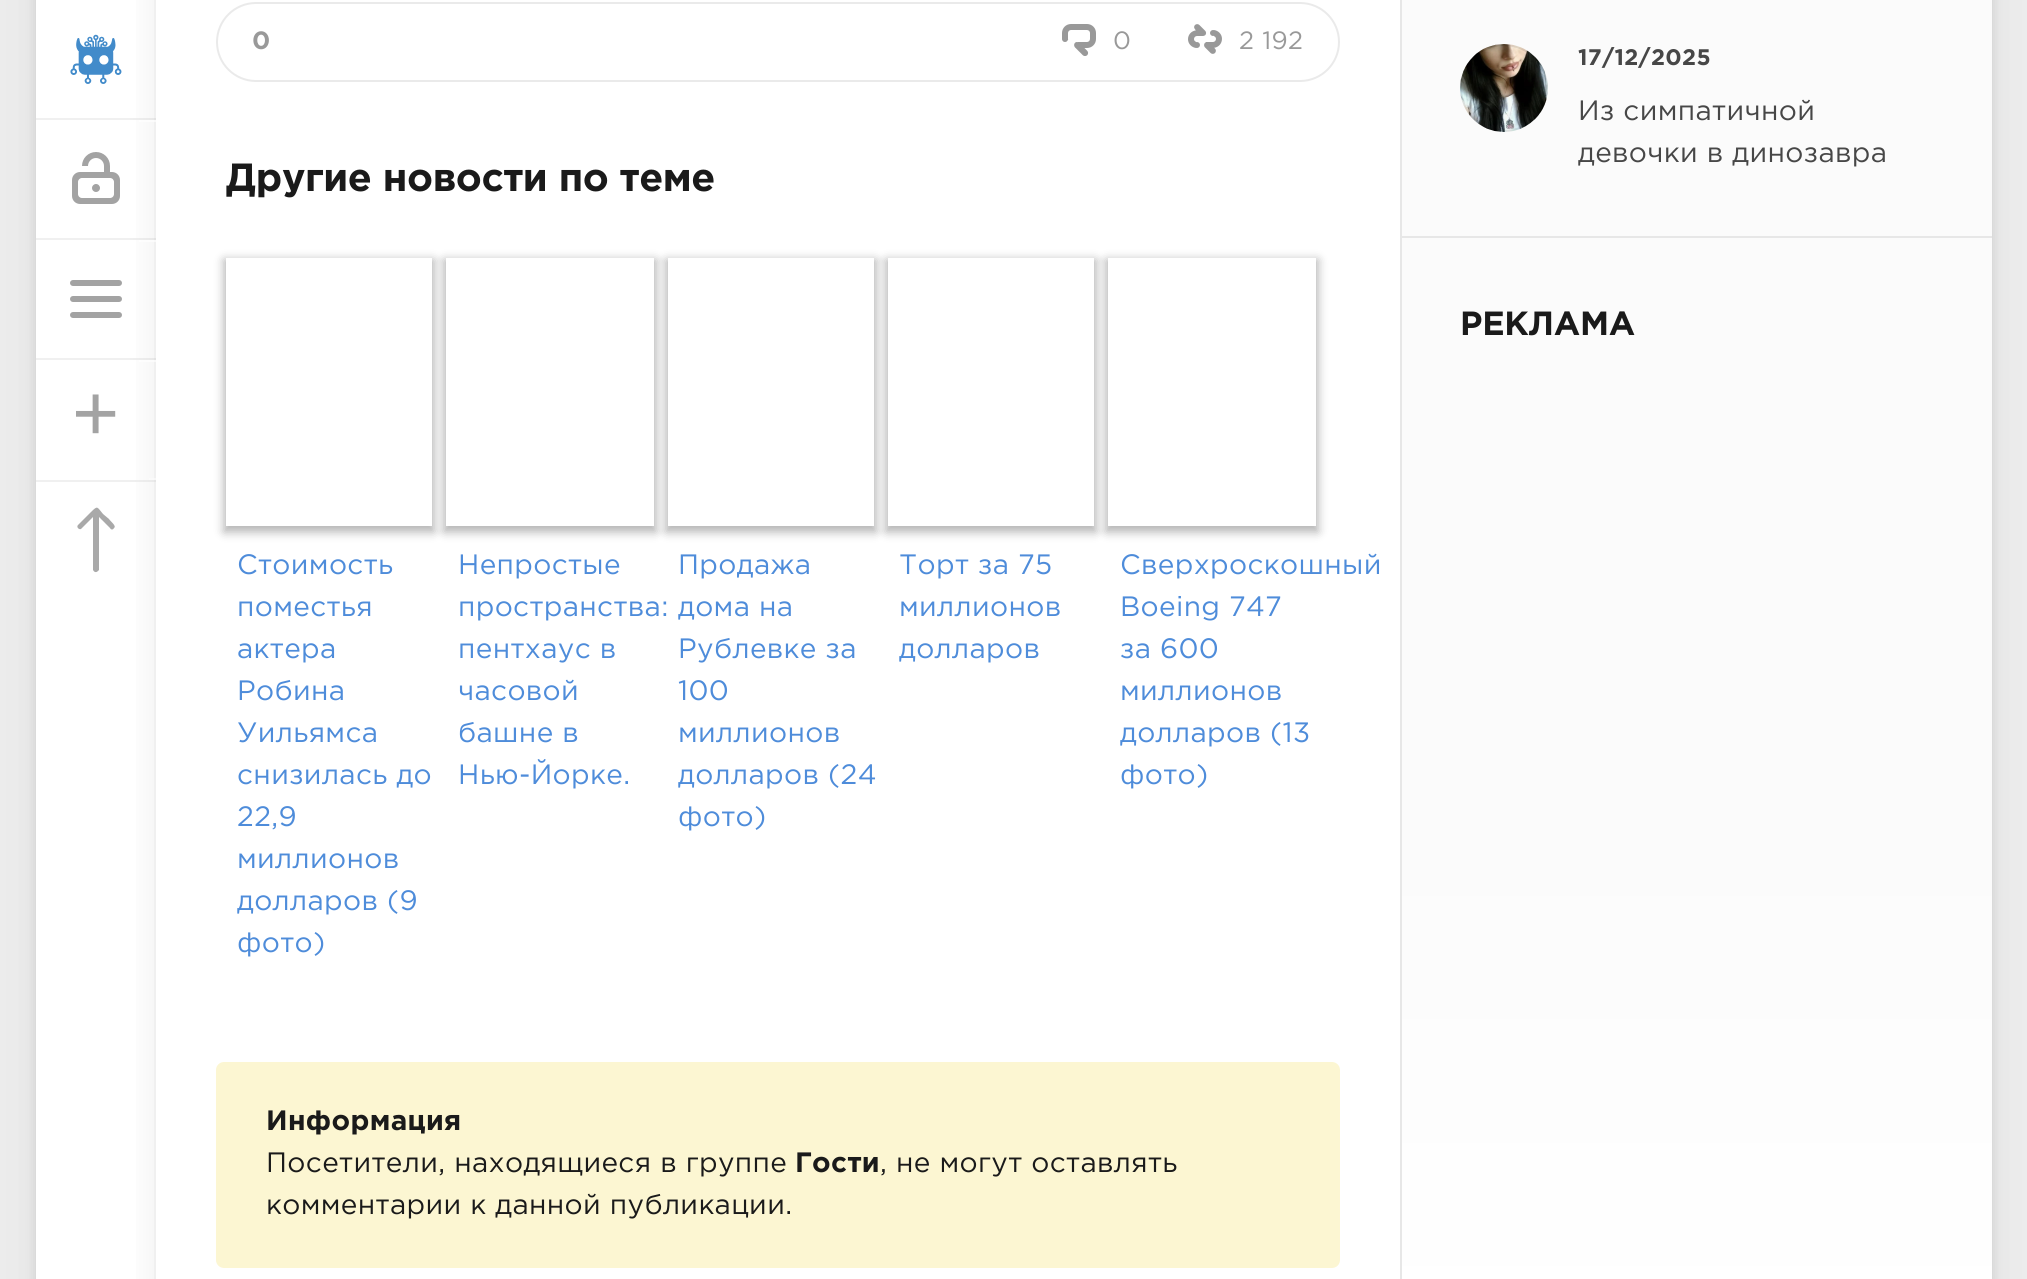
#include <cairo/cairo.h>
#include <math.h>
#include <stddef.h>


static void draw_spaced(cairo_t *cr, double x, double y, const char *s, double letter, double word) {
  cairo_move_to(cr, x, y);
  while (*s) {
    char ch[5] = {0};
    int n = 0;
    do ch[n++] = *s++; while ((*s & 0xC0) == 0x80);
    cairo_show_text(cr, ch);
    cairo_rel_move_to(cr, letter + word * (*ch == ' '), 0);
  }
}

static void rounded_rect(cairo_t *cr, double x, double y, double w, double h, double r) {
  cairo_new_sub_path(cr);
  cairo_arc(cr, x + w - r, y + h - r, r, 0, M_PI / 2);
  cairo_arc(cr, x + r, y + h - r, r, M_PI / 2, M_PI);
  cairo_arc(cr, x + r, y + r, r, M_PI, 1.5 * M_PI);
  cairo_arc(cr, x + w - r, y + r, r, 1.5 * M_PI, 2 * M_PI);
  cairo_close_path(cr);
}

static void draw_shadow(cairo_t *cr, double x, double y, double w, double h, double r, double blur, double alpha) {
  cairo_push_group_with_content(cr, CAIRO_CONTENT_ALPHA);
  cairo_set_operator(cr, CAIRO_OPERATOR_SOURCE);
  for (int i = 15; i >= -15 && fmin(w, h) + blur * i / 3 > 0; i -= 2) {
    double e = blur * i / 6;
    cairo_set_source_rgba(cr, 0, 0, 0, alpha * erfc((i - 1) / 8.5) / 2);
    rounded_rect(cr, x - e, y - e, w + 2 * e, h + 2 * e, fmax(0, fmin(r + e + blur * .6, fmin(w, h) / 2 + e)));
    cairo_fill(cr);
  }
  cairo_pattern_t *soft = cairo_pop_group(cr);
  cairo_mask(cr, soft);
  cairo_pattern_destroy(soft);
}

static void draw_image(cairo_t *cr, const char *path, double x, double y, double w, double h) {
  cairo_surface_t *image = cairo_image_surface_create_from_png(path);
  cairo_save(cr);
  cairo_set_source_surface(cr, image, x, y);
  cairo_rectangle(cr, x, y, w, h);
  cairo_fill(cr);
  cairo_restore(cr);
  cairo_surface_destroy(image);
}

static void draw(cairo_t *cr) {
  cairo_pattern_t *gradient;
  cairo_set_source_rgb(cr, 238 / 255.0, 238 / 255.0, 238 / 255.0);
  cairo_paint(cr);
  cairo_set_source_rgb(cr, 0, 0, 0);
  draw_shadow(cr, 36, -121, 1956, 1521, 16, 35, 0.06);
  draw_shadow(cr, 36, -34, 1956, 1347, 16, 6, 0.11);
  cairo_set_source_rgb(cr, 1, 1, 1);
  cairo_rectangle(cr, 36, 0, 1364, 1279);
  cairo_fill(cr);
  cairo_set_source_rgb(cr, 240 / 255.0, 240 / 255.0, 240 / 255.0);
  cairo_rectangle(cr, 36, 480, 92, 2);
  cairo_fill(cr);
  cairo_rectangle(cr, 36, 358, 92, 2);
  cairo_fill(cr);
  cairo_rectangle(cr, 36, 238, 92, 2);
  cairo_fill(cr);
  cairo_rectangle(cr, 36, 118, 92, 2);
  cairo_fill(cr);
  draw_image(cr, "images/1.png", 70, 34, 52, 50);
  draw_image(cr, "images/2.png", 72, 152, 48, 52);
  cairo_set_source_rgb(cr, 163 / 255.0, 163 / 255.0, 163 / 255.0);
  rounded_rect(cr, 70, 280, 52, 6, 3);
  cairo_fill(cr);
  rounded_rect(cr, 70, 296, 52, 6, 3);
  cairo_fill(cr);
  rounded_rect(cr, 70, 312, 52, 6, 3);
  cairo_fill(cr);
  cairo_set_source_rgb(cr, 169 / 255.0, 169 / 255.0, 169 / 255.0);
  cairo_new_path(cr);
  cairo_move_to(cr, 114, 528);
  cairo_curve_to(cr, 113, 530, 111, 530, 110, 528);
  cairo_line_to(cr, 99, 517);
  cairo_line_to(cr, 99, 570);
  cairo_line_to(cr, 98, 571);
  cairo_curve_to(cr, 96, 573, 94, 572, 93, 570);
  cairo_line_to(cr, 93, 517);
  cairo_line_to(cr, 81, 529);
  cairo_curve_to(cr, 79, 530, 76, 527, 78, 525);
  cairo_line_to(cr, 91, 512);
  cairo_curve_to(cr, 98, 505, 97, 507, 103, 514);
  cairo_line_to(cr, 109, 519);
  cairo_curve_to(cr, 110, 521, 117, 526, 114, 528);
  cairo_close_path(cr);
  cairo_fill(cr);
  gradient = cairo_pattern_create_linear(128, 405, 154, 405);
  cairo_pattern_add_color_stop_rgba(gradient, 0, 1, 1, 1, 1);
  cairo_pattern_add_color_stop_rgba(gradient, 1, 247 / 255.0, 247 / 255.0, 247 / 255.0, 1);
  cairo_set_source(cr, gradient);
  cairo_pattern_destroy(gradient);
  cairo_rectangle(cr, 136, 0, 18, 1279);
  cairo_fill(cr);
  gradient = cairo_pattern_create_linear(128, 405, 154, 405);
  cairo_pattern_add_color_stop_rgba(gradient, 0, 253 / 255.0, 253 / 255.0, 253 / 255.0, 1);
  cairo_pattern_add_color_stop_rgba(gradient, 1, 250 / 255.0, 250 / 255.0, 250 / 255.0, 1);
  cairo_set_source(cr, gradient);
  cairo_pattern_destroy(gradient);
  cairo_rectangle(cr, 149, 478, 5, 2);
  cairo_fill(cr);
  gradient = cairo_pattern_create_linear(128, 405, 154, 405);
  cairo_pattern_add_color_stop_rgba(gradient, 0, 240 / 255.0, 240 / 255.0, 240 / 255.0, 1);
  cairo_pattern_add_color_stop_rgba(gradient, 1, 234 / 255.0, 234 / 255.0, 234 / 255.0, 1);
  cairo_set_source(cr, gradient);
  cairo_pattern_destroy(gradient);
  cairo_rectangle(cr, 128, 480, 26, 2);
  cairo_fill(cr);
  gradient = cairo_pattern_create_linear(128, 405, 154, 405);
  cairo_pattern_add_color_stop_rgba(gradient, 0, 240 / 255.0, 240 / 255.0, 240 / 255.0, 1);
  cairo_pattern_add_color_stop_rgba(gradient, 1, 232 / 255.0, 232 / 255.0, 232 / 255.0, 1);
  cairo_set_source(cr, gradient);
  cairo_pattern_destroy(gradient);
  cairo_rectangle(cr, 128, 358, 26, 2);
  cairo_fill(cr);
  gradient = cairo_pattern_create_linear(128, 405, 154, 405);
  cairo_pattern_add_color_stop_rgba(gradient, 0, 1, 1, 1, 1);
  cairo_pattern_add_color_stop_rgba(gradient, 1, 252 / 255.0, 252 / 255.0, 252 / 255.0, 1);
  cairo_set_source(cr, gradient);
  cairo_pattern_destroy(gradient);
  cairo_rectangle(cr, 139, 360, 15, 2);
  cairo_fill(cr);
  gradient = cairo_pattern_create_linear(128, 405, 154, 405);
  cairo_pattern_add_color_stop_rgba(gradient, 0, 240 / 255.0, 240 / 255.0, 240 / 255.0, 1);
  cairo_pattern_add_color_stop_rgba(gradient, 1, 232 / 255.0, 232 / 255.0, 232 / 255.0, 1);
  cairo_set_source(cr, gradient);
  cairo_pattern_destroy(gradient);
  cairo_rectangle(cr, 128, 238, 26, 2);
  cairo_fill(cr);
  gradient = cairo_pattern_create_linear(128, 405, 154, 405);
  cairo_pattern_add_color_stop_rgba(gradient, 0, 1, 1, 1, 1);
  cairo_pattern_add_color_stop_rgba(gradient, 1, 252 / 255.0, 252 / 255.0, 252 / 255.0, 1);
  cairo_set_source(cr, gradient);
  cairo_pattern_destroy(gradient);
  cairo_rectangle(cr, 139, 240, 15, 2);
  cairo_fill(cr);
  gradient = cairo_pattern_create_linear(128, 405, 154, 405);
  cairo_pattern_add_color_stop_rgba(gradient, 0, 240 / 255.0, 240 / 255.0, 240 / 255.0, 1);
  cairo_pattern_add_color_stop_rgba(gradient, 1, 232 / 255.0, 232 / 255.0, 232 / 255.0, 1);
  cairo_set_source(cr, gradient);
  cairo_pattern_destroy(gradient);
  cairo_rectangle(cr, 128, 118, 26, 2);
  cairo_fill(cr);
  gradient = cairo_pattern_create_linear(128, 405, 154, 405);
  cairo_pattern_add_color_stop_rgba(gradient, 0, 1, 1, 1, 1);
  cairo_pattern_add_color_stop_rgba(gradient, 1, 252 / 255.0, 252 / 255.0, 252 / 255.0, 1);
  cairo_set_source(cr, gradient);
  cairo_pattern_destroy(gradient);
  cairo_rectangle(cr, 139, 120, 15, 2);
  cairo_fill(cr);
  cairo_set_source_rgb(cr, 240 / 255.0, 240 / 255.0, 240 / 255.0);
  cairo_rectangle(cr, 154, 0, 2, 1279);
  cairo_fill(cr);
  cairo_set_source_rgb(cr, 247 / 255.0, 247 / 255.0, 247 / 255.0);
  cairo_rectangle(cr, 154, 478, 2, 2);
  cairo_fill(cr);
  cairo_set_source_rgb(cr, 229 / 255.0, 229 / 255.0, 229 / 255.0);
  cairo_rectangle(cr, 154, 480, 2, 2);
  cairo_fill(cr);
  cairo_set_source_rgb(cr, 226 / 255.0, 226 / 255.0, 226 / 255.0);
  cairo_rectangle(cr, 154, 358, 2, 2);
  cairo_fill(cr);
  cairo_set_source_rgb(cr, 249 / 255.0, 249 / 255.0, 249 / 255.0);
  cairo_rectangle(cr, 154, 360, 2, 2);
  cairo_fill(cr);
  cairo_set_source_rgb(cr, 226 / 255.0, 226 / 255.0, 226 / 255.0);
  cairo_rectangle(cr, 154, 238, 2, 2);
  cairo_fill(cr);
  cairo_set_source_rgb(cr, 249 / 255.0, 249 / 255.0, 249 / 255.0);
  cairo_rectangle(cr, 154, 240, 2, 2);
  cairo_fill(cr);
  cairo_set_source_rgb(cr, 226 / 255.0, 226 / 255.0, 226 / 255.0);
  cairo_rectangle(cr, 154, 118, 2, 2);
  cairo_fill(cr);
  cairo_set_source_rgb(cr, 249 / 255.0, 249 / 255.0, 249 / 255.0);
  cairo_rectangle(cr, 154, 120, 2, 2);
  cairo_fill(cr);
  rounded_rect(cr, 217, 3, 1122, 78, 39);
  cairo_set_source_rgb(cr, 234 / 255.0, 234 / 255.0, 234 / 255.0);
  cairo_stroke(cr);
  draw_image(cr, "images/3.png", 1062, 24, 34, 32);
  draw_image(cr, "images/4.png", 1188, 24, 34, 30);
  cairo_save(cr);
  cairo_set_fill_rule(cr, CAIRO_FILL_RULE_EVEN_ODD);
  cairo_new_path(cr);
  cairo_move_to(cr, 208, 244);
  cairo_line_to(cr, 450, 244);
  cairo_line_to(cr, 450, 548);
  cairo_line_to(cr, 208, 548);
  cairo_close_path(cr);
  cairo_move_to(cr, 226, 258);
  cairo_line_to(cr, 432, 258);
  cairo_line_to(cr, 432, 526);
  cairo_line_to(cr, 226, 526);
  cairo_close_path(cr);
  cairo_clip(cr);
  cairo_set_source_rgb(cr, 0, 0, 0);
  draw_shadow(cr, 224, 260, 210, 272, 0, 5, 0.3);
  cairo_restore(cr);
  cairo_save(cr);
  cairo_set_fill_rule(cr, CAIRO_FILL_RULE_EVEN_ODD);
  cairo_new_path(cr);
  cairo_move_to(cr, 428, 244);
  cairo_line_to(cr, 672, 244);
  cairo_line_to(cr, 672, 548);
  cairo_line_to(cr, 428, 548);
  cairo_close_path(cr);
  cairo_move_to(cr, 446, 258);
  cairo_line_to(cr, 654, 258);
  cairo_line_to(cr, 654, 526);
  cairo_line_to(cr, 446, 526);
  cairo_close_path(cr);
  cairo_clip(cr);
  cairo_set_source_rgb(cr, 0, 0, 0);
  draw_shadow(cr, 444, 260, 212, 272, 0, 5, 0.3);
  cairo_restore(cr);
  cairo_save(cr);
  cairo_set_fill_rule(cr, CAIRO_FILL_RULE_EVEN_ODD);
  cairo_new_path(cr);
  cairo_move_to(cr, 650, 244);
  cairo_line_to(cr, 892, 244);
  cairo_line_to(cr, 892, 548);
  cairo_line_to(cr, 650, 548);
  cairo_close_path(cr);
  cairo_move_to(cr, 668, 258);
  cairo_line_to(cr, 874, 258);
  cairo_line_to(cr, 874, 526);
  cairo_line_to(cr, 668, 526);
  cairo_close_path(cr);
  cairo_clip(cr);
  cairo_set_source_rgb(cr, 0, 0, 0);
  draw_shadow(cr, 666, 260, 210, 272, 0, 5, 0.3);
  cairo_restore(cr);
  cairo_save(cr);
  cairo_set_fill_rule(cr, CAIRO_FILL_RULE_EVEN_ODD);
  cairo_new_path(cr);
  cairo_move_to(cr, 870, 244);
  cairo_line_to(cr, 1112, 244);
  cairo_line_to(cr, 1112, 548);
  cairo_line_to(cr, 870, 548);
  cairo_close_path(cr);
  cairo_move_to(cr, 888, 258);
  cairo_line_to(cr, 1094, 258);
  cairo_line_to(cr, 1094, 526);
  cairo_line_to(cr, 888, 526);
  cairo_close_path(cr);
  cairo_clip(cr);
  cairo_set_source_rgb(cr, 0, 0, 0);
  draw_shadow(cr, 886, 260, 210, 272, 0, 5, 0.3);
  cairo_restore(cr);
  cairo_save(cr);
  cairo_set_fill_rule(cr, CAIRO_FILL_RULE_EVEN_ODD);
  cairo_new_path(cr);
  cairo_move_to(cr, 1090, 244);
  cairo_line_to(cr, 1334, 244);
  cairo_line_to(cr, 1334, 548);
  cairo_line_to(cr, 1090, 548);
  cairo_close_path(cr);
  cairo_move_to(cr, 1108, 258);
  cairo_line_to(cr, 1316, 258);
  cairo_line_to(cr, 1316, 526);
  cairo_line_to(cr, 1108, 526);
  cairo_close_path(cr);
  cairo_clip(cr);
  cairo_set_source_rgb(cr, 0, 0, 0);
  draw_shadow(cr, 1106, 260, 212, 272, 0, 5, 0.3);
  cairo_restore(cr);
  cairo_set_source_rgb(cr, 252 / 255.0, 246 / 255.0, 210 / 255.0);
  rounded_rect(cr, 216, 1062, 1124, 206, 8);
  cairo_fill(cr);
  cairo_set_source_rgb(cr, 251 / 255.0, 251 / 255.0, 251 / 255.0);
  cairo_rectangle(cr, 1402, 0, 590, 834);
  cairo_fill(cr);
  cairo_set_source_rgb(cr, 231 / 255.0, 231 / 255.0, 231 / 255.0);
  cairo_rectangle(cr, 1400, 236, 592, 2);
  cairo_fill(cr);
  cairo_rectangle(cr, 1400, 0, 2, 1279);
  cairo_fill(cr);
  gradient = cairo_pattern_create_linear(1696, 834, 1696, 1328);
  cairo_pattern_add_color_stop_rgba(gradient, 0, 251 / 255.0, 251 / 255.0, 251 / 255.0, 1);
  cairo_pattern_add_color_stop_rgba(gradient, 1, 1, 1, 1, 1);
  cairo_set_source(cr, gradient);
  cairo_pattern_destroy(gradient);
  cairo_rectangle(cr, 1402, 834, 590, 445);
  cairo_fill(cr);
  cairo_set_source_rgb(cr, 1, 1, 1);
  cairo_arc(cr, 1504, 88, 44, 0, 2 * M_PI);
  cairo_fill(cr);
  draw_image(cr, "images/5.png", 1460, 44, 88, 88);
  cairo_arc(cr, 1504, 88, 43, 0, 2 * M_PI);
  cairo_set_source_rgba(cr, 0, 0, 0, 0.1);
  cairo_stroke(cr);
  cairo_select_font_face(cr, "Gotham", CAIRO_FONT_SLANT_NORMAL, CAIRO_FONT_WEIGHT_NORMAL);
  cairo_set_font_size(cr, 80);
  cairo_set_source_rgb(cr, 163 / 255.0, 163 / 255.0, 163 / 255.0);
  draw_spaced(cr, 70, 442, "+", 0.35, 0);
  cairo_select_font_face(cr, "Gotham", CAIRO_FONT_SLANT_NORMAL, CAIRO_FONT_WEIGHT_BOLD);
  cairo_set_font_size(cr, 25);
  cairo_set_source_rgb(cr, 153 / 255.0, 153 / 255.0, 153 / 255.0);
  draw_spaced(cr, 252, 49, "0", 0.35, 0);
  cairo_select_font_face(cr, "Gotham", CAIRO_FONT_SLANT_NORMAL, CAIRO_FONT_WEIGHT_NORMAL);
  draw_spaced(cr, 1113, 49, "0", 0.35, 0);
  draw_spaced(cr, 1239, 49, "2 192", 0.35, 0);
  cairo_select_font_face(cr, "Gotham", CAIRO_FONT_SLANT_NORMAL, CAIRO_FONT_WEIGHT_BOLD);
  cairo_set_font_size(cr, 39.25);
  cairo_set_source_rgb(cr, 26 / 255.0, 26 / 255.0, 26 / 255.0);
  draw_spaced(cr, 226, 191, "Другие новости по теме", -0.4, 0);
  cairo_select_font_face(cr, "Gotham", CAIRO_FONT_SLANT_NORMAL, CAIRO_FONT_WEIGHT_NORMAL);
  cairo_set_font_size(cr, 28);
  cairo_set_source_rgb(cr, 78 / 255.0, 140 / 255.0, 218 / 255.0);
  draw_spaced(cr, 237, 574, "Стоимость", 0.35, 0);
  draw_spaced(cr, 237, 616, "поместья", 0.35, 0);
  draw_spaced(cr, 237, 658, "актера", 0.35, 0);
  draw_spaced(cr, 237, 700, "Робина", 0.35, 0);
  draw_spaced(cr, 237, 742, "Уильямса", 0.35, 0);
  draw_spaced(cr, 237, 784, "снизилась до", 0.35, 0);
  draw_spaced(cr, 237, 826, "22,9", 0.35, 0);
  draw_spaced(cr, 237, 868, "миллионов", 0.35, 0);
  draw_spaced(cr, 237, 910, "долларов (9", 0.35, 0);
  draw_spaced(cr, 237, 952, "фото)", 0.35, 0);
  draw_spaced(cr, 458, 574, "Непростые", 0.35, 0);
  draw_spaced(cr, 458, 616, "пространства:", 0.35, 0);
  draw_spaced(cr, 458, 658, "пентхаус в", 0.35, 0);
  draw_spaced(cr, 458, 700, "часовой", 0.35, 0);
  draw_spaced(cr, 458, 742, "башне в", 0.35, 0);
  draw_spaced(cr, 458, 784, "Нью-Йорке.", 0.35, 0);
  draw_spaced(cr, 678, 574, "Продажа", 0.35, 0);
  draw_spaced(cr, 678, 616, "дома на", 0.35, 0);
  draw_spaced(cr, 678, 658, "Рублевке за", 0.35, 0);
  draw_spaced(cr, 678, 700, "100", 0.35, 0);
  draw_spaced(cr, 678, 742, "миллионов", 0.35, 0);
  draw_spaced(cr, 678, 784, "долларов (24", 0.35, 0);
  draw_spaced(cr, 678, 826, "фото)", 0.35, 0);
  draw_spaced(cr, 899, 574, "Торт за 75", 0.35, 0);
  draw_spaced(cr, 899, 616, "миллионов", 0.35, 0);
  draw_spaced(cr, 899, 658, "долларов", 0.35, 0);
  draw_spaced(cr, 1120, 574, "Сверхроскошный", 0.35, 0);
  draw_spaced(cr, 1120, 616, "Boeing 747", 0.35, 0);
  draw_spaced(cr, 1120, 658, "за 600", 0.35, 0);
  draw_spaced(cr, 1120, 700, "миллионов", 0.35, 0);
  draw_spaced(cr, 1120, 742, "долларов (13", 0.35, 0);
  draw_spaced(cr, 1120, 784, "фото)", 0.35, 0);
  cairo_select_font_face(cr, "Gotham", CAIRO_FONT_SLANT_NORMAL, CAIRO_FONT_WEIGHT_BOLD);
  cairo_set_source_rgb(cr, 26 / 255.0, 26 / 255.0, 26 / 255.0);
  draw_spaced(cr, 266, 1130, "Информация", 0.35, 0);
  cairo_select_font_face(cr, "Gotham", CAIRO_FONT_SLANT_NORMAL, CAIRO_FONT_WEIGHT_NORMAL);
  draw_spaced(cr, 266, 1172, "Посетители, находящиеся в группе", 0.35, 0);
  cairo_select_font_face(cr, "Gotham", CAIRO_FONT_SLANT_NORMAL, CAIRO_FONT_WEIGHT_BOLD);
  draw_spaced(cr, 795, 1172, "Гости", 0.35, 0);
  cairo_select_font_face(cr, "Gotham", CAIRO_FONT_SLANT_NORMAL, CAIRO_FONT_WEIGHT_NORMAL);
  draw_spaced(cr, 880, 1172, ", не могут оставлять", 0.35, 0);
  draw_spaced(cr, 266, 1214, "комментарии к данной публикации.", 0.35, 0);
  cairo_select_font_face(cr, "Gotham", CAIRO_FONT_SLANT_NORMAL, CAIRO_FONT_WEIGHT_BOLD);
  cairo_set_font_size(cr, 22.5);
  cairo_set_source_rgb(cr, 71 / 255.0, 71 / 255.0, 71 / 255.0);
  draw_spaced(cr, 1578, 65, "17/12/2025", 0.35, 0);
  cairo_select_font_face(cr, "Gotham", CAIRO_FONT_SLANT_NORMAL, CAIRO_FONT_WEIGHT_NORMAL);
  cairo_set_font_size(cr, 28);
  draw_spaced(cr, 1578, 120, "Из симпатичной", 0.35, 0);
  draw_spaced(cr, 1578, 162, "девочки в динозавра", 0.35, 0);
  cairo_select_font_face(cr, "Gotham", CAIRO_FONT_SLANT_NORMAL, CAIRO_FONT_WEIGHT_BOLD);
  cairo_set_font_size(cr, 33.5);
  cairo_set_source_rgb(cr, 26 / 255.0, 26 / 255.0, 26 / 255.0);
  draw_spaced(cr, 1460, 335, "РЕКЛАМА", -0.25, 0);
}

int main(void) {
  cairo_surface_t *surface = cairo_image_surface_create(CAIRO_FORMAT_RGB24, 2027, 1279);
  cairo_t *cr = cairo_create(surface);
  cairo_font_options_t *options = cairo_font_options_create();
  cairo_font_options_set_hint_metrics(options, CAIRO_HINT_METRICS_OFF);
  cairo_font_options_set_hint_style(options, CAIRO_HINT_STYLE_NONE);
  cairo_set_font_options(cr, options);
  cairo_set_miter_limit(cr, 4);
  draw(cr);
  cairo_surface_write_to_png(surface, "out.png");
  cairo_font_options_destroy(options);
  cairo_destroy(cr);
  cairo_surface_destroy(surface);
  return 0;
}
